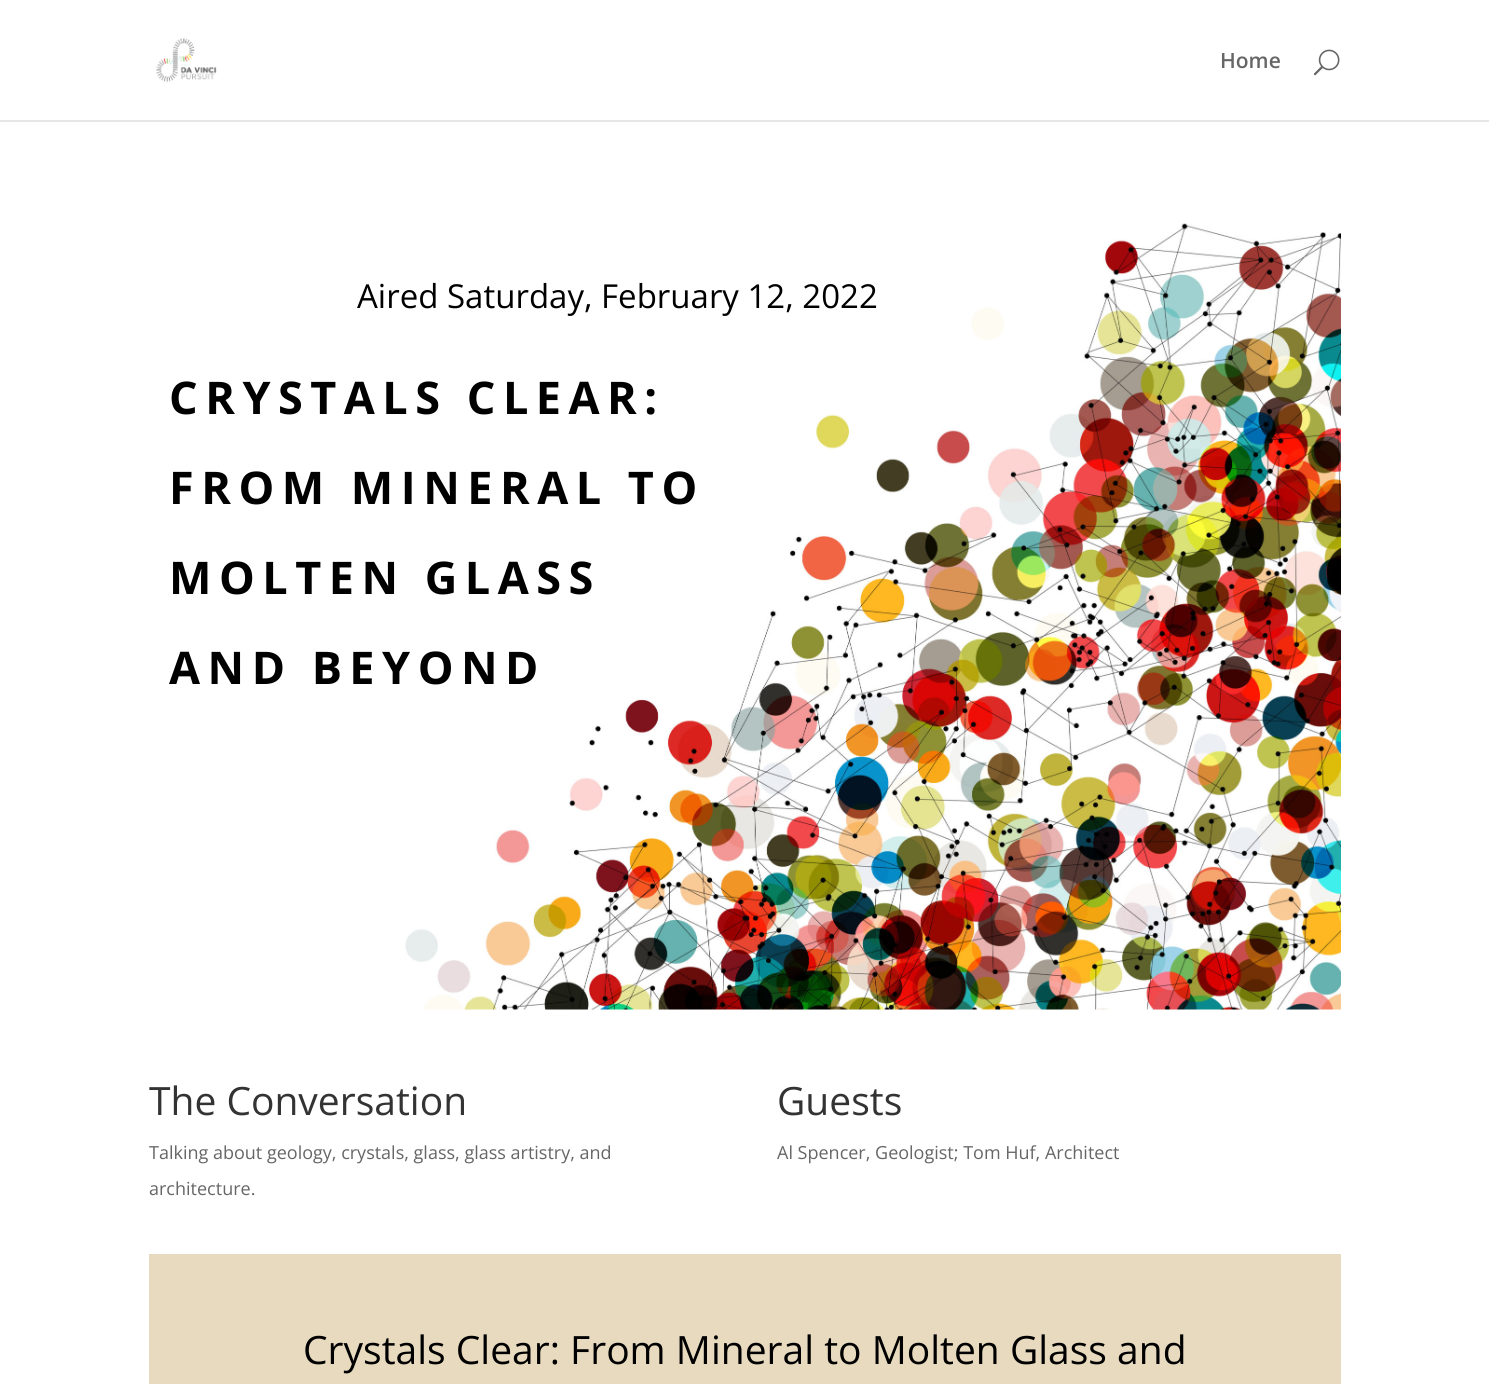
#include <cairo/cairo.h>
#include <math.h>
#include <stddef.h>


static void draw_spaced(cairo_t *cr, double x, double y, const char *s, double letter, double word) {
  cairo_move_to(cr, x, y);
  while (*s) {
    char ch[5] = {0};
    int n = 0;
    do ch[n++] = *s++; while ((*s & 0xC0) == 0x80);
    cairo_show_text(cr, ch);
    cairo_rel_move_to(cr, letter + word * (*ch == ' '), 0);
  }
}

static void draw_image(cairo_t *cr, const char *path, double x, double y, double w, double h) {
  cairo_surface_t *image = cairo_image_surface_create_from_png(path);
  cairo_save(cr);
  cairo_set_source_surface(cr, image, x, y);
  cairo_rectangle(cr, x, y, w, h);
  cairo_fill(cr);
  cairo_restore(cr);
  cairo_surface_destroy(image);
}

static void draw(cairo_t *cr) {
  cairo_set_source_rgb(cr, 1, 1, 1);
  cairo_paint(cr);
  cairo_set_source_rgb(cr, 230 / 255.0, 230 / 255.0, 230 / 255.0);
  cairo_new_path(cr);
  cairo_move_to(cr, 0, 120);
  cairo_line_to(cr, 0, 122);
  cairo_line_to(cr, 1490, 122);
  cairo_line_to(cr, 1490, 2);
  cairo_line_to(cr, 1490, 120);
  cairo_close_path(cr);
  cairo_fill(cr);
  draw_image(cr, "images/1.png", 156, 38, 61, 45);
  draw_image(cr, "images/2.png", 1313, 49, 27, 27);
  draw_image(cr, "images/3.png", 405, 223, 936, 787);
  cairo_set_source_rgb(cr, 232 / 255.0, 218 / 255.0, 191 / 255.0);
  cairo_rectangle(cr, 149, 1254, 1192, 130);
  cairo_fill(cr);
  cairo_select_font_face(cr, "Open Sans SemiBold", CAIRO_FONT_SLANT_NORMAL, CAIRO_FONT_WEIGHT_NORMAL);
  cairo_set_font_size(cr, 21);
  cairo_set_source_rgb(cr, 102 / 255.0, 102 / 255.0, 102 / 255.0);
  cairo_move_to(cr, 1220, 68);
  cairo_show_text(cr, "Home");
  cairo_select_font_face(cr, "Open Sans", CAIRO_FONT_SLANT_NORMAL, CAIRO_FONT_WEIGHT_NORMAL);
  cairo_set_font_size(cr, 33);
  cairo_set_source_rgb(cr, 0, 0, 0);
  cairo_move_to(cr, 357, 308);
  cairo_show_text(cr, "Aired Saturday, February 12, 2022");
  cairo_select_font_face(cr, "Open Sans", CAIRO_FONT_SLANT_NORMAL, CAIRO_FONT_WEIGHT_BOLD);
  cairo_set_font_size(cr, 45);
  draw_spaced(cr, 169, 414, "CRYSTALS CLEAR:", 7.5, 0);
  draw_spaced(cr, 169, 504, "FROM MINERAL TO", 7.5, 0);
  draw_spaced(cr, 169, 594, "MOLTEN GLASS", 7.5, 0);
  draw_spaced(cr, 169, 684, "AND BEYOND", 7.5, 0);
  cairo_select_font_face(cr, "Open Sans", CAIRO_FONT_SLANT_NORMAL, CAIRO_FONT_WEIGHT_NORMAL);
  cairo_set_font_size(cr, 39);
  cairo_set_source_rgb(cr, 51 / 255.0, 51 / 255.0, 51 / 255.0);
  cairo_move_to(cr, 149, 1115);
  cairo_show_text(cr, "The Conversation");
  cairo_set_font_size(cr, 18);
  cairo_set_source_rgb(cr, 102 / 255.0, 102 / 255.0, 102 / 255.0);
  cairo_move_to(cr, 149, 1159);
  cairo_show_text(cr, "Talking about geology, crystals, glass, glass artistry, and");
  cairo_move_to(cr, 149, 1195);
  cairo_show_text(cr, "architecture.");
  cairo_set_font_size(cr, 39);
  cairo_set_source_rgb(cr, 51 / 255.0, 51 / 255.0, 51 / 255.0);
  cairo_move_to(cr, 777, 1115);
  cairo_show_text(cr, "Guests");
  cairo_set_font_size(cr, 18);
  cairo_set_source_rgb(cr, 102 / 255.0, 102 / 255.0, 102 / 255.0);
  cairo_move_to(cr, 777, 1159);
  cairo_show_text(cr, "Al Spencer, Geologist; Tom Huf, Architect");
  cairo_set_font_size(cr, 39);
  cairo_set_source_rgb(cr, 0, 0, 0);
  cairo_move_to(cr, 303, 1364);
  cairo_show_text(cr, "Crystals Clear: From Mineral to Molten Glass and");
}

int main(void) {
  cairo_surface_t *surface = cairo_image_surface_create(CAIRO_FORMAT_RGB24, 1489, 1384);
  cairo_t *cr = cairo_create(surface);
  cairo_font_options_t *options = cairo_font_options_create();
  cairo_font_options_set_hint_metrics(options, CAIRO_HINT_METRICS_OFF);
  cairo_font_options_set_hint_style(options, CAIRO_HINT_STYLE_NONE);
  cairo_set_font_options(cr, options);
  cairo_set_miter_limit(cr, 4);
  draw(cr);
  cairo_surface_write_to_png(surface, "out.png");
  cairo_font_options_destroy(options);
  cairo_destroy(cr);
  cairo_surface_destroy(surface);
  return 0;
}
